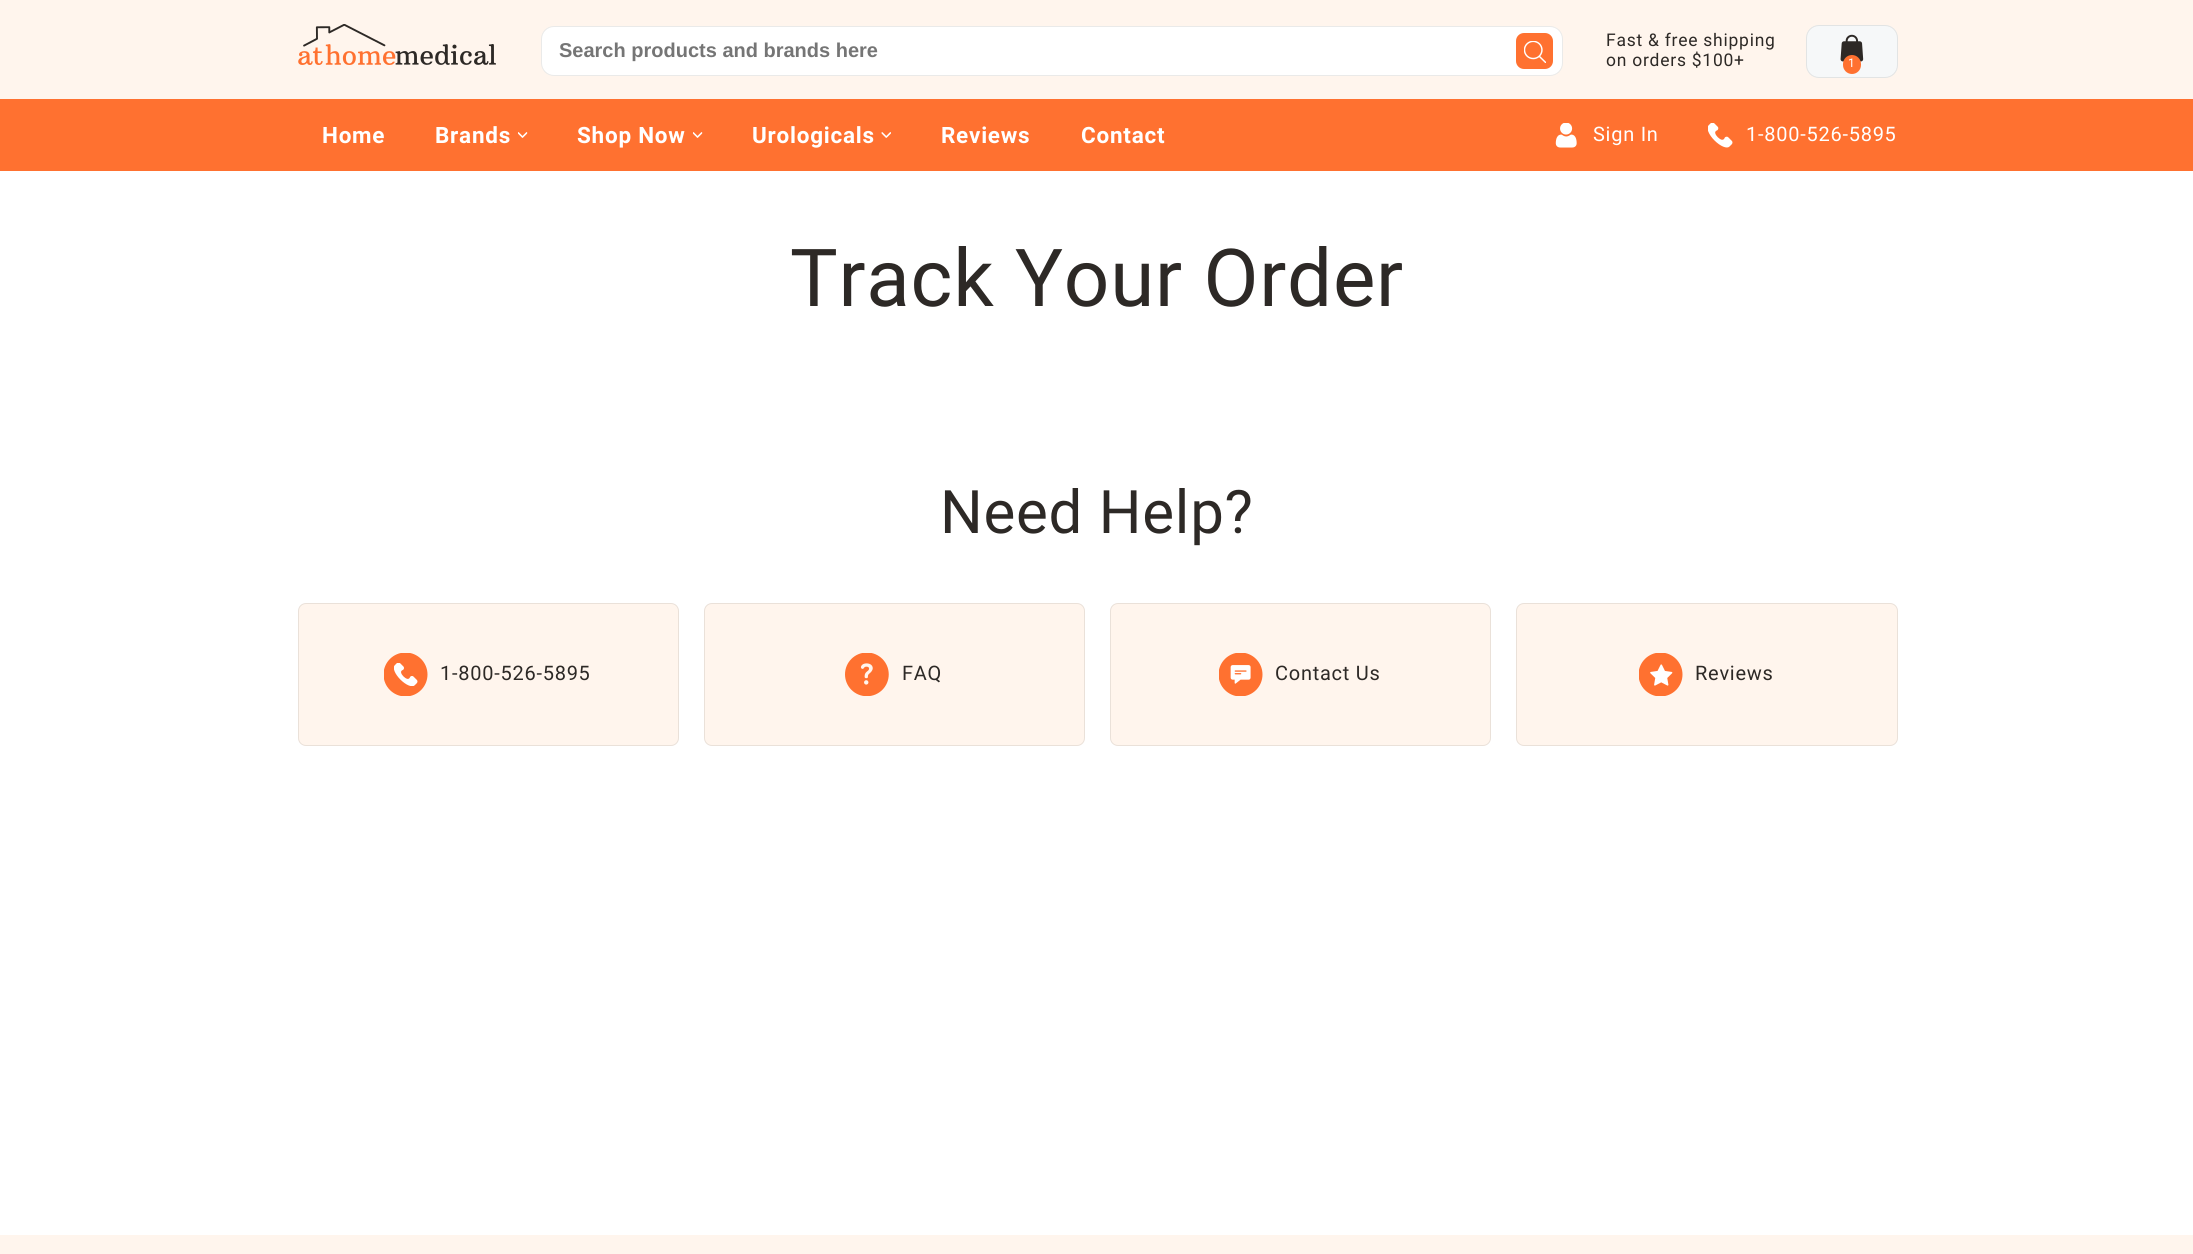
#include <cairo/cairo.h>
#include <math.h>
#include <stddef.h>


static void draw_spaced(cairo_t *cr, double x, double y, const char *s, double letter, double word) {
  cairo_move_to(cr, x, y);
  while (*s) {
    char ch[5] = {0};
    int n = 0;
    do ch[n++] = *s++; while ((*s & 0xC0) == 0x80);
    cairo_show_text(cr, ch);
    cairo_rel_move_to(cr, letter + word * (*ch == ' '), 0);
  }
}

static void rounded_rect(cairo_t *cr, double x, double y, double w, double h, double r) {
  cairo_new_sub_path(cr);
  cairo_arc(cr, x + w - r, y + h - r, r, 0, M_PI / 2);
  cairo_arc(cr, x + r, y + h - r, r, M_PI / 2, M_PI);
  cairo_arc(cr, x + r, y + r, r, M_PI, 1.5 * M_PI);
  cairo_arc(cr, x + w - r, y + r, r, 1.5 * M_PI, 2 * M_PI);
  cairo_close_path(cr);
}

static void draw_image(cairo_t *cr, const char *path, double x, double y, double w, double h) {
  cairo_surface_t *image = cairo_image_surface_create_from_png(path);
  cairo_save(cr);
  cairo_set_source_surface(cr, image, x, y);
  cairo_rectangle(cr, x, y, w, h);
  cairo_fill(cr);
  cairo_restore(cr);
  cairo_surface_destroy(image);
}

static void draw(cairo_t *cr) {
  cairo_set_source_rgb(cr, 1, 1, 1);
  cairo_paint(cr);
  cairo_set_source_rgb(cr, 1, 245 / 255.0, 237 / 255.0);
  cairo_rectangle(cr, 0, 0, 2193, 99);
  cairo_fill(cr);
  draw_image(cr, "images/1.png", 298, 24, 198, 41);
  cairo_set_source_rgb(cr, 1, 1, 1);
  rounded_rect(cr, 541, 26, 1022, 50, 13);
  cairo_fill(cr);
  rounded_rect(cr, 541.5, 26.5, 1021, 49, 12.5);
  cairo_set_source_rgba(cr, 45 / 255.0, 41 / 255.0, 38 / 255.0, 0.1);
  cairo_set_line_width(cr, 1);
  cairo_stroke(cr);
  draw_image(cr, "images/2.png", 1516, 33, 37, 36);
  cairo_set_source_rgb(cr, 246 / 255.0, 248 / 255.0, 249 / 255.0);
  rounded_rect(cr, 1806, 25, 92, 53, 13);
  cairo_fill(cr);
  rounded_rect(cr, 1806.5, 25.5, 91, 52, 12.5);
  cairo_set_source_rgba(cr, 45 / 255.0, 41 / 255.0, 38 / 255.0, 0.1);
  cairo_stroke(cr);
  draw_image(cr, "images/3.png", 1840, 34, 24, 28);
  cairo_set_source_rgb(cr, 1, 113 / 255.0, 48 / 255.0);
  rounded_rect(cr, 1843, 55, 18, 19, 9);
  cairo_fill(cr);
  cairo_rectangle(cr, 0, 99, 2193, 72);
  cairo_fill(cr);
  draw_image(cr, "images/4.png", 518, 132, 10, 6);
  draw_image(cr, "images/4.png", 693, 132, 10, 6);
  draw_image(cr, "images/5.png", 881, 132, 10, 6);
  draw_image(cr, "images/6.png", 1555, 123, 22, 25);
  draw_image(cr, "images/7.png", 1708, 123, 25, 25);
  cairo_set_source_rgb(cr, 1, 245 / 255.0, 237 / 255.0);
  rounded_rect(cr, 298, 603, 381, 143, 8);
  cairo_fill(cr);
  rounded_rect(cr, 298.5, 603.5, 380, 142, 7.5);
  cairo_set_source_rgba(cr, 45 / 255.0, 41 / 255.0, 38 / 255.0, 0.1);
  cairo_stroke(cr);
  draw_image(cr, "images/8.png", 384, 653, 44, 43);
  cairo_set_source_rgb(cr, 1, 245 / 255.0, 237 / 255.0);
  rounded_rect(cr, 704, 603, 381, 143, 8);
  cairo_fill(cr);
  rounded_rect(cr, 704.5, 603.5, 380, 142, 7.5);
  cairo_set_source_rgba(cr, 45 / 255.0, 41 / 255.0, 38 / 255.0, 0.1);
  cairo_stroke(cr);
  draw_image(cr, "images/9.png", 845, 653, 44, 43);
  cairo_set_source_rgb(cr, 1, 245 / 255.0, 237 / 255.0);
  rounded_rect(cr, 1110, 603, 381, 143, 8);
  cairo_fill(cr);
  rounded_rect(cr, 1110.5, 603.5, 380, 142, 7.5);
  cairo_set_source_rgba(cr, 45 / 255.0, 41 / 255.0, 38 / 255.0, 0.1);
  cairo_stroke(cr);
  draw_image(cr, "images/10.png", 1219, 653, 44, 43);
  cairo_set_source_rgb(cr, 1, 245 / 255.0, 237 / 255.0);
  rounded_rect(cr, 1516, 603, 382, 143, 8);
  cairo_fill(cr);
  rounded_rect(cr, 1516.5, 603.5, 381, 142, 7.5);
  cairo_set_source_rgba(cr, 45 / 255.0, 41 / 255.0, 38 / 255.0, 0.1);
  cairo_stroke(cr);
  draw_image(cr, "images/11.png", 1639, 653, 44, 43);
  cairo_set_source_rgb(cr, 1, 245 / 255.0, 237 / 255.0);
  cairo_rectangle(cr, 0, 1235, 2193, 19);
  cairo_fill(cr);
  cairo_select_font_face(cr, "Liberation Sans", CAIRO_FONT_SLANT_NORMAL, CAIRO_FONT_WEIGHT_BOLD);
  cairo_set_font_size(cr, 20);
  cairo_set_source_rgb(cr, 117 / 255.0, 117 / 255.0, 117 / 255.0);
  cairo_move_to(cr, 559, 57);
  cairo_show_text(cr, "Search products and brands here");
  cairo_select_font_face(cr, "Roboto", CAIRO_FONT_SLANT_NORMAL, CAIRO_FONT_WEIGHT_NORMAL);
  cairo_set_font_size(cr, 17.5);
  cairo_set_source_rgb(cr, 45 / 255.0, 41 / 255.0, 38 / 255.0);
  draw_spaced(cr, 1606, 46, "Fast & free shipping", 0.75, 0);
  draw_spaced(cr, 1606, 66, "on orders $100+", 0.75, 0);
  cairo_set_font_size(cr, 12);
  cairo_set_source_rgb(cr, 1, 1, 1);
  draw_spaced(cr, 1848, 67, "1", 0.75, 0);
  cairo_select_font_face(cr, "Roboto", CAIRO_FONT_SLANT_NORMAL, CAIRO_FONT_WEIGHT_BOLD);
  cairo_set_font_size(cr, 22.5);
  draw_spaced(cr, 322, 143, "Home", 0.75, 0);
  draw_spaced(cr, 435, 143, "Brands", 0.75, 0);
  draw_spaced(cr, 577, 143, "Shop Now", 0.75, 0);
  draw_spaced(cr, 752, 143, "Urologicals", 0.75, 0);
  draw_spaced(cr, 941, 143, "Reviews", 0.75, 0);
  draw_spaced(cr, 1081, 143, "Contact", 0.75, 0);
  cairo_select_font_face(cr, "Roboto", CAIRO_FONT_SLANT_NORMAL, CAIRO_FONT_WEIGHT_NORMAL);
  cairo_set_font_size(cr, 20);
  draw_spaced(cr, 1593, 141, "Sign In", 0.75, 0);
  draw_spaced(cr, 1746, 141, "1-800-526-5895", 0.75, 0);
  cairo_set_font_size(cr, 80);
  cairo_set_source_rgb(cr, 45 / 255.0, 41 / 255.0, 38 / 255.0);
  draw_spaced(cr, 790, 306, "Track Your Order", 0.75, 0);
  cairo_set_font_size(cr, 60);
  draw_spaced(cr, 940, 533, "Need Help?", 0.75, 0);
  cairo_set_font_size(cr, 20);
  draw_spaced(cr, 440, 680, "1-800-526-5895", 0.75, 0);
  draw_spaced(cr, 902, 680, "FAQ", 0.75, 0);
  draw_spaced(cr, 1275, 680, "Contact Us", 0.75, 0);
  draw_spaced(cr, 1695, 680, "Reviews", 0.75, 0);
}

int main(void) {
  cairo_surface_t *surface = cairo_image_surface_create(CAIRO_FORMAT_RGB24, 2193, 1254);
  cairo_t *cr = cairo_create(surface);
  cairo_font_options_t *options = cairo_font_options_create();
  cairo_font_options_set_hint_metrics(options, CAIRO_HINT_METRICS_OFF);
  cairo_font_options_set_hint_style(options, CAIRO_HINT_STYLE_NONE);
  cairo_set_font_options(cr, options);
  cairo_set_miter_limit(cr, 4);
  draw(cr);
  cairo_surface_write_to_png(surface, "out.png");
  cairo_font_options_destroy(options);
  cairo_destroy(cr);
  cairo_surface_destroy(surface);
  return 0;
}
